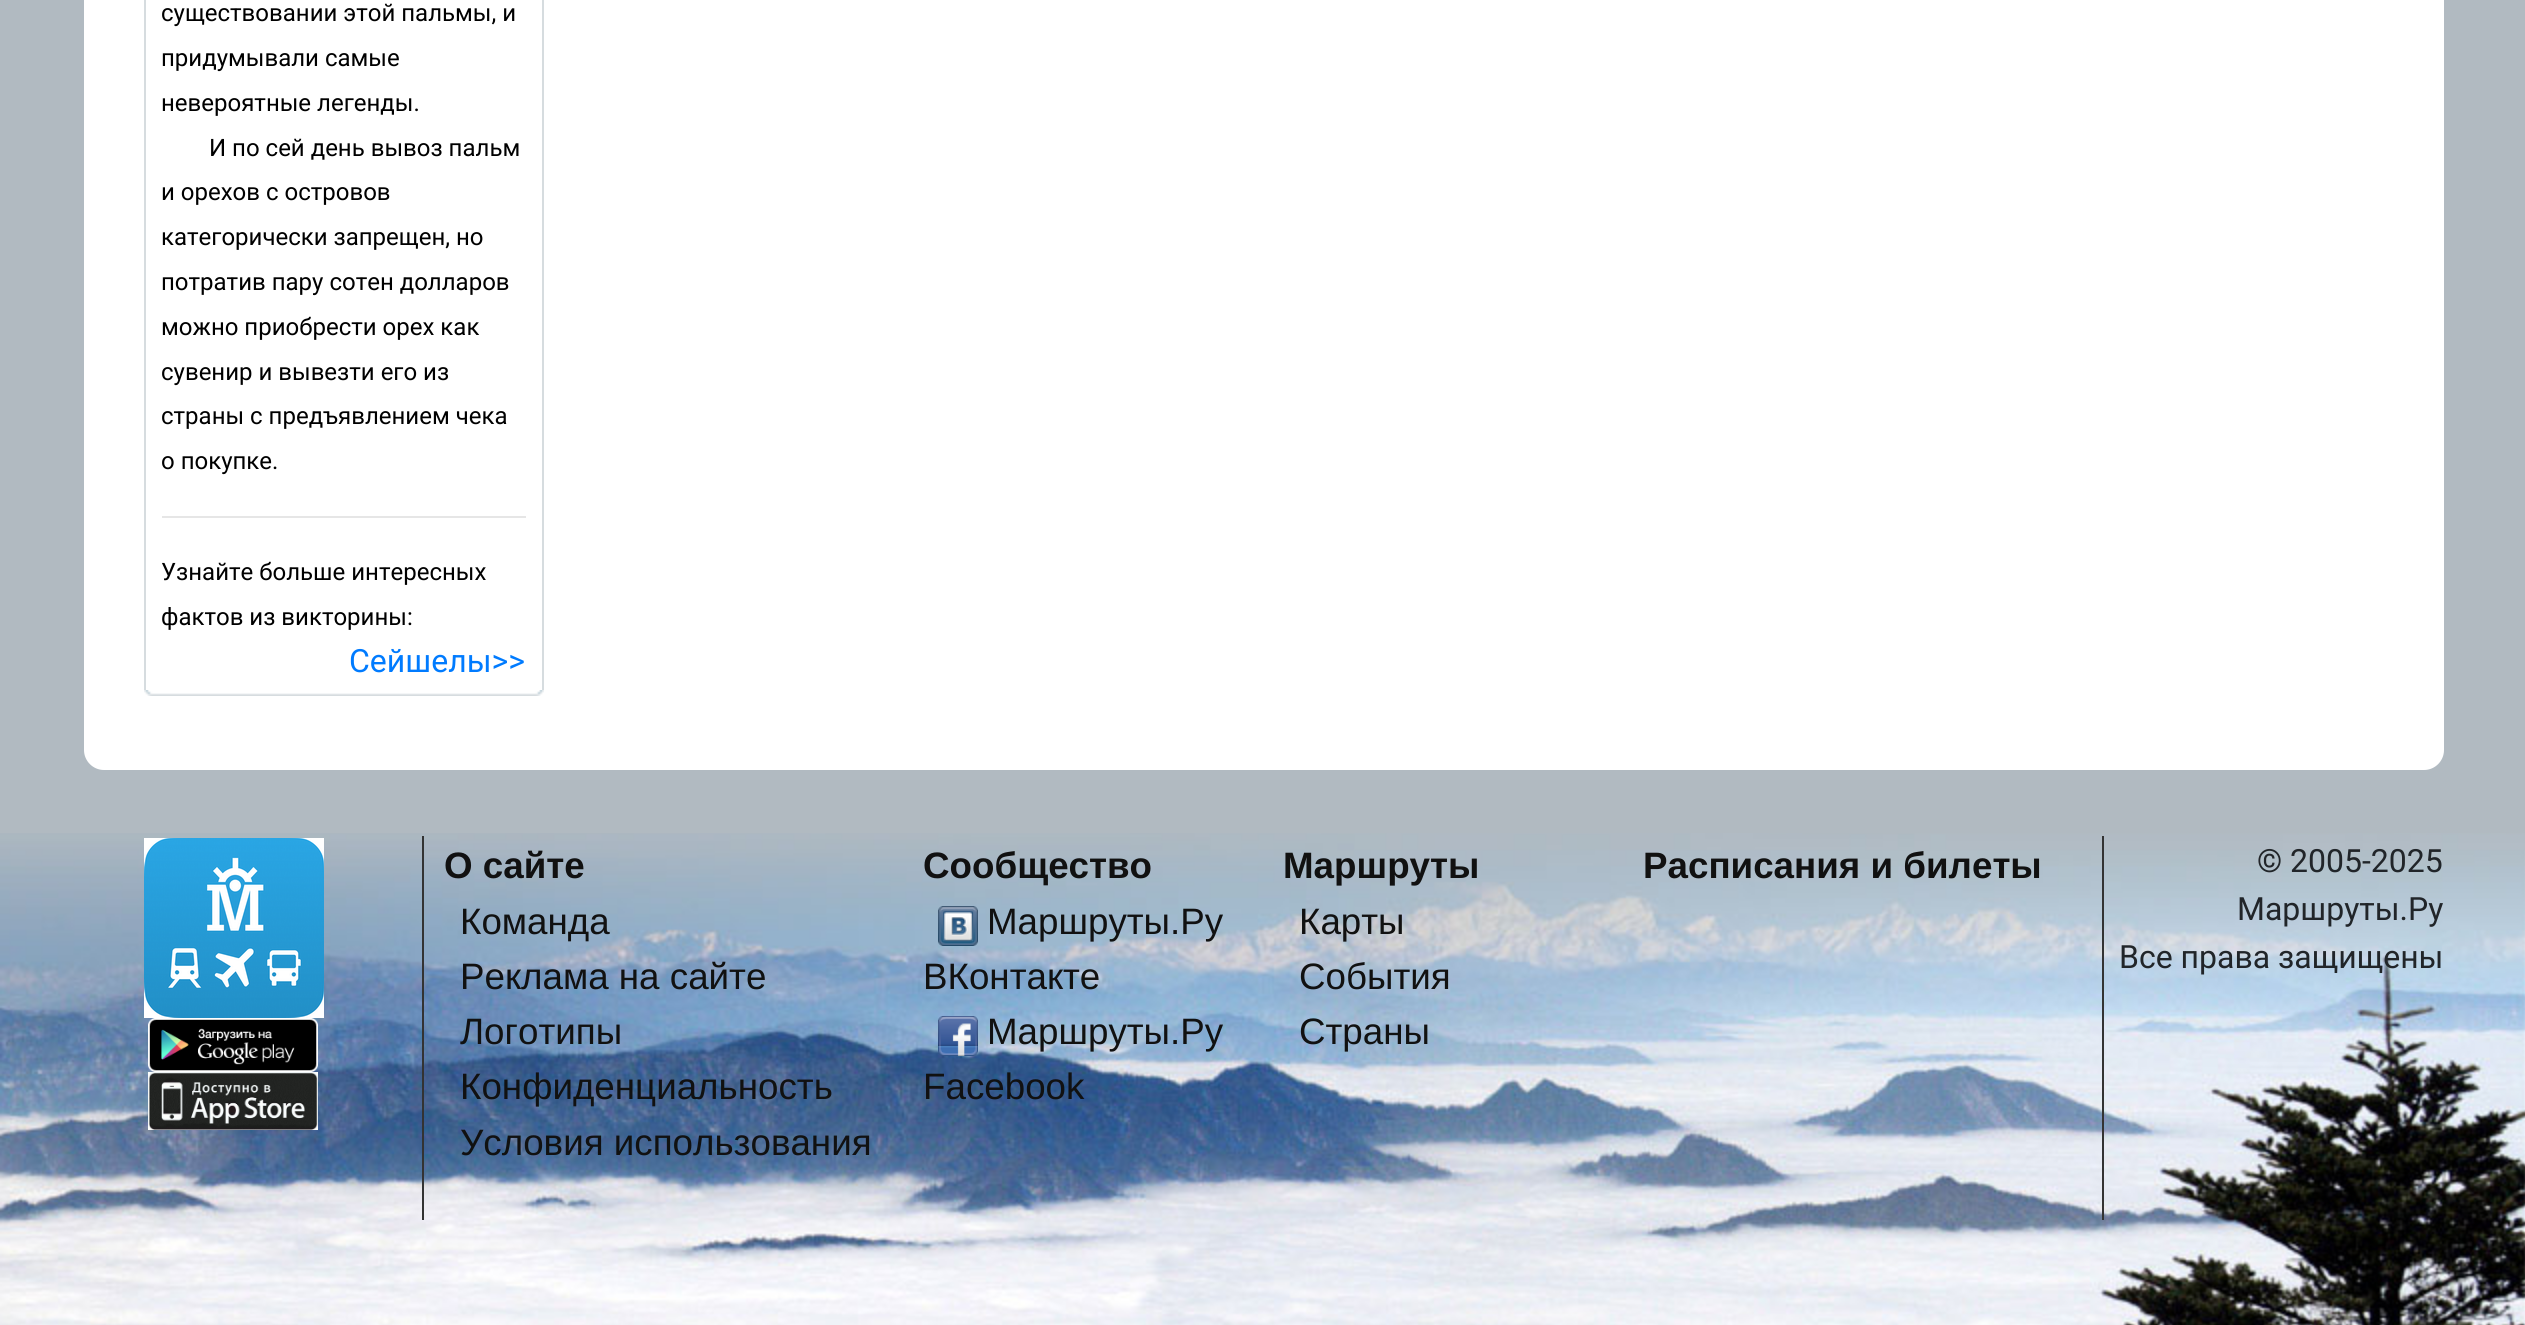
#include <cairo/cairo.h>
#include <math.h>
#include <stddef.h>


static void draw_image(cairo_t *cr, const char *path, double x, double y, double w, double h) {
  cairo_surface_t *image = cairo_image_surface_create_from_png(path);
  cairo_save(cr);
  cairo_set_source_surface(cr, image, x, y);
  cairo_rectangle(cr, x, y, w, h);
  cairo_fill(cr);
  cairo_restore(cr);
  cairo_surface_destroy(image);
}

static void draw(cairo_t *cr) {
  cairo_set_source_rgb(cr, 177 / 255.0, 186 / 255.0, 193 / 255.0);
  cairo_paint(cr);
  cairo_set_source_rgb(cr, 1, 1, 1);
  cairo_new_path(cr);
  cairo_move_to(cr, 84, -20);
  cairo_line_to(cr, 2444, -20);
  cairo_line_to(cr, 2444, 750);
  cairo_curve_to(cr, 2444, 761, 2435, 770, 2424, 770);
  cairo_line_to(cr, 104, 770);
  cairo_curve_to(cr, 93, 770, 84, 761, 84, 750);
  cairo_close_path(cr);
  cairo_fill(cr);
  draw_image(cr, "images/1.png", 144, 690, 400, 6);
  cairo_set_source_rgb(cr, 214 / 255.0, 220 / 255.0, 223 / 255.0);
  cairo_rectangle(cr, 542, 0, 2, 690);
  cairo_fill(cr);
  cairo_rectangle(cr, 144, 0, 2, 690);
  cairo_fill(cr);
  cairo_set_source_rgb(cr, 230 / 255.0, 230 / 255.0, 230 / 255.0);
  cairo_rectangle(cr, 162, 516, 364, 2);
  cairo_fill(cr);
  draw_image(cr, "images/2.png", 0, 833, 2525, 492);
  cairo_set_source_rgb(cr, 51 / 255.0, 51 / 255.0, 51 / 255.0);
  cairo_rectangle(cr, 422, 836, 2, 384);
  cairo_fill(cr);
  draw_image(cr, "images/3.png", 144, 838, 180, 180);
  draw_image(cr, "images/4.png", 148, 1018, 170, 54);
  draw_image(cr, "images/5.png", 148, 1072, 170, 58);
  draw_image(cr, "images/6.png", 938, 906, 40, 40);
  draw_image(cr, "images/7.png", 938, 1016, 40, 40);
  cairo_rectangle(cr, 2102, 836, 2, 384);
  cairo_fill(cr);
  cairo_select_font_face(cr, "Roboto", CAIRO_FONT_SLANT_NORMAL, CAIRO_FONT_WEIGHT_NORMAL);
  cairo_set_font_size(cr, 24);
  cairo_set_source_rgb(cr, 0, 0, 0);
  cairo_move_to(cr, 161, 21);
  cairo_show_text(cr, "существовании этой пальмы, и");
  cairo_move_to(cr, 161, 66);
  cairo_show_text(cr, "придумывали самые");
  cairo_move_to(cr, 161, 111);
  cairo_show_text(cr, "невероятные легенды.");
  cairo_move_to(cr, 209, 156);
  cairo_show_text(cr, "И по сей день вывоз пальм");
  cairo_move_to(cr, 161, 200);
  cairo_show_text(cr, "и орехов с островов");
  cairo_move_to(cr, 161, 245);
  cairo_show_text(cr, "категорически запрещен, но");
  cairo_move_to(cr, 161, 290);
  cairo_show_text(cr, "потратив пару сотен долларов");
  cairo_move_to(cr, 161, 335);
  cairo_show_text(cr, "можно приобрести орех как");
  cairo_move_to(cr, 161, 380);
  cairo_show_text(cr, "сувенир и вывезти его из");
  cairo_move_to(cr, 161, 424);
  cairo_show_text(cr, "страны с предъявлением чека");
  cairo_move_to(cr, 161, 469);
  cairo_show_text(cr, "о покупке.");
  cairo_move_to(cr, 161, 580);
  cairo_show_text(cr, "Узнайте больше интересных");
  cairo_move_to(cr, 161, 625);
  cairo_show_text(cr, "фактов из викторины:");
  cairo_set_font_size(cr, 32);
  cairo_set_source_rgb(cr, 0, 123 / 255.0, 1);
  cairo_move_to(cr, 349, 672);
  cairo_show_text(cr, "Сейшелы>>");
  cairo_select_font_face(cr, "Liberation Sans", CAIRO_FONT_SLANT_NORMAL, CAIRO_FONT_WEIGHT_BOLD);
  cairo_set_font_size(cr, 36.75);
  cairo_set_source_rgb(cr, 17 / 255.0, 17 / 255.0, 17 / 255.0);
  cairo_move_to(cr, 444, 878);
  cairo_show_text(cr, "О сайте");
  cairo_select_font_face(cr, "Liberation Sans", CAIRO_FONT_SLANT_NORMAL, CAIRO_FONT_WEIGHT_NORMAL);
  cairo_move_to(cr, 460, 934);
  cairo_show_text(cr, "Команда");
  cairo_move_to(cr, 460, 989);
  cairo_show_text(cr, "Реклама на сайте");
  cairo_move_to(cr, 460, 1044);
  cairo_show_text(cr, "Логотипы");
  cairo_move_to(cr, 460, 1099);
  cairo_show_text(cr, "Конфиденциальность");
  cairo_move_to(cr, 460, 1155);
  cairo_show_text(cr, "Условия использования");
  cairo_select_font_face(cr, "Liberation Sans", CAIRO_FONT_SLANT_NORMAL, CAIRO_FONT_WEIGHT_BOLD);
  cairo_move_to(cr, 923, 878);
  cairo_show_text(cr, "Сообщество");
  cairo_select_font_face(cr, "Liberation Sans", CAIRO_FONT_SLANT_NORMAL, CAIRO_FONT_WEIGHT_NORMAL);
  cairo_move_to(cr, 987, 934);
  cairo_show_text(cr, "Маршруты.Ру");
  cairo_move_to(cr, 923, 989);
  cairo_show_text(cr, "ВКонтакте");
  cairo_move_to(cr, 987, 1044);
  cairo_show_text(cr, "Маршруты.Ру");
  cairo_move_to(cr, 923, 1099);
  cairo_show_text(cr, "Facebook");
  cairo_select_font_face(cr, "Liberation Sans", CAIRO_FONT_SLANT_NORMAL, CAIRO_FONT_WEIGHT_BOLD);
  cairo_move_to(cr, 1283, 878);
  cairo_show_text(cr, "Маршруты");
  cairo_select_font_face(cr, "Liberation Sans", CAIRO_FONT_SLANT_NORMAL, CAIRO_FONT_WEIGHT_NORMAL);
  cairo_move_to(cr, 1299, 934);
  cairo_show_text(cr, "Карты");
  cairo_move_to(cr, 1299, 989);
  cairo_show_text(cr, "События");
  cairo_move_to(cr, 1299, 1044);
  cairo_show_text(cr, "Страны");
  cairo_select_font_face(cr, "Liberation Sans", CAIRO_FONT_SLANT_NORMAL, CAIRO_FONT_WEIGHT_BOLD);
  cairo_move_to(cr, 1643, 878);
  cairo_show_text(cr, "Расписания и билеты");
  cairo_select_font_face(cr, "Roboto", CAIRO_FONT_SLANT_NORMAL, CAIRO_FONT_WEIGHT_NORMAL);
  cairo_set_font_size(cr, 32);
  cairo_set_source_rgb(cr, 33 / 255.0, 37 / 255.0, 41 / 255.0);
  cairo_move_to(cr, 2257, 872);
  cairo_show_text(cr, "© 2005-2025");
  cairo_move_to(cr, 2237, 920);
  cairo_show_text(cr, "Маршруты.Ру");
  cairo_move_to(cr, 2119, 968);
  cairo_show_text(cr, "Все права защищены");
}

int main(void) {
  cairo_surface_t *surface = cairo_image_surface_create(CAIRO_FORMAT_RGB24, 2525, 1325);
  cairo_t *cr = cairo_create(surface);
  cairo_font_options_t *options = cairo_font_options_create();
  cairo_font_options_set_hint_metrics(options, CAIRO_HINT_METRICS_OFF);
  cairo_font_options_set_hint_style(options, CAIRO_HINT_STYLE_NONE);
  cairo_set_font_options(cr, options);
  cairo_set_miter_limit(cr, 4);
  draw(cr);
  cairo_surface_write_to_png(surface, "out.png");
  cairo_font_options_destroy(options);
  cairo_destroy(cr);
  cairo_surface_destroy(surface);
  return 0;
}
